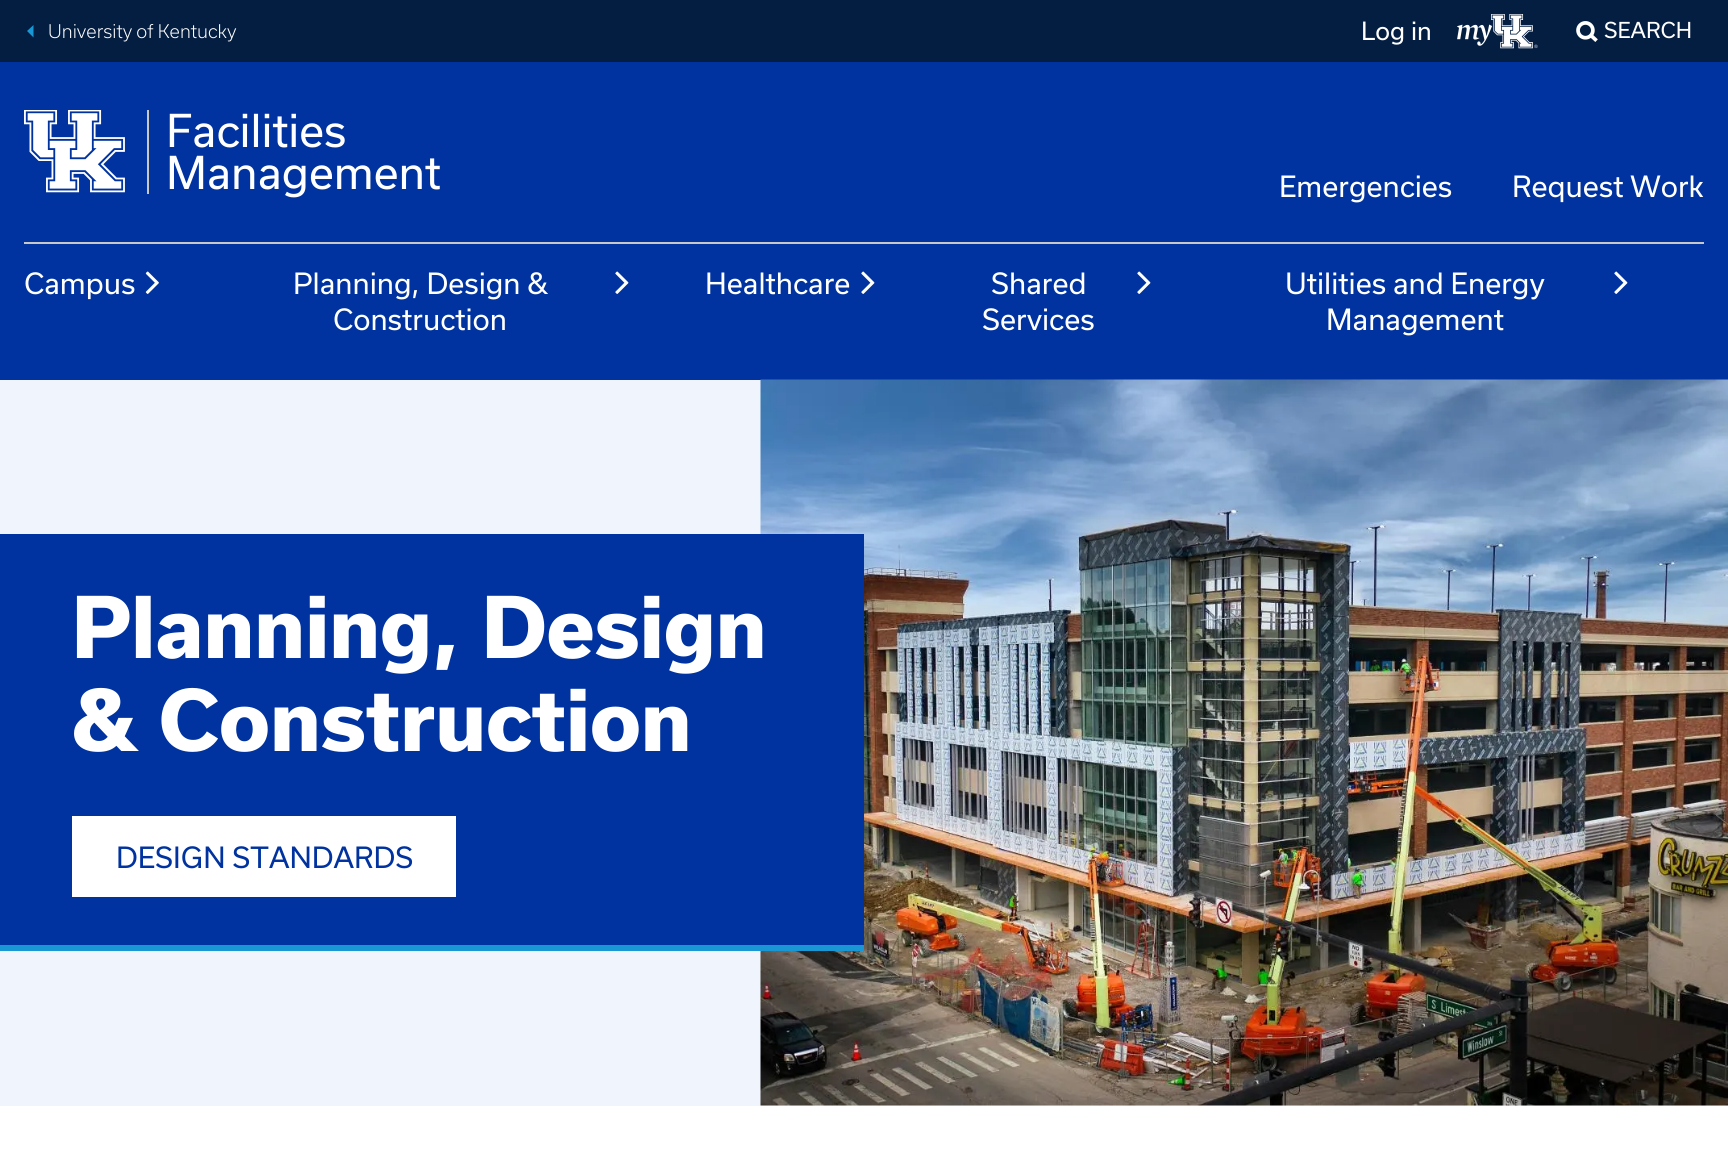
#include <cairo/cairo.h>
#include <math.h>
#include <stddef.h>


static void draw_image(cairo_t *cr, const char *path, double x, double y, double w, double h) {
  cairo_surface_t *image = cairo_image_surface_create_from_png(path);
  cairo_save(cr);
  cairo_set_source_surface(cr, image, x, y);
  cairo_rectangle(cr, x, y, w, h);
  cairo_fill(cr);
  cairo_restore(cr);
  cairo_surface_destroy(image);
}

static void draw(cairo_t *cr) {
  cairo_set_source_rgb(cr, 1, 1, 1);
  cairo_paint(cr);
  cairo_set_source_rgb(cr, 4 / 255.0, 30 / 255.0, 66 / 255.0);
  cairo_rectangle(cr, 0, 0, 1728, 62);
  cairo_fill(cr);
  cairo_set_source_rgb(cr, 24 / 255.0, 151 / 255.0, 212 / 255.0);
  cairo_new_path(cr);
  cairo_move_to(cr, 33.5, 25);
  cairo_line_to(cr, 33.5, 37.5);
  cairo_line_to(cr, 27, 31);
  cairo_close_path(cr);
  cairo_fill(cr);
  draw_image(cr, "images/1.png", 1457, 14, 81, 35);
  draw_image(cr, "images/2.png", 1576, 21, 22, 21);
  cairo_set_source_rgb(cr, 0, 51 / 255.0, 160 / 255.0);
  cairo_rectangle(cr, 0, 62, 1728, 318);
  cairo_fill(cr);
  cairo_set_source_rgb(cr, 200 / 255.0, 200 / 255.0, 199 / 255.0);
  cairo_rectangle(cr, 147, 110, 2, 84);
  cairo_fill(cr);
  draw_image(cr, "images/3.png", 24, 110, 101, 83);
  cairo_rectangle(cr, 24, 242, 1680, 2);
  cairo_fill(cr);
  draw_image(cr, "images/4.png", 145, 271, 14, 23);
  draw_image(cr, "images/5.png", 615, 271, 14, 23);
  draw_image(cr, "images/5.png", 861, 271, 14, 23);
  draw_image(cr, "images/5.png", 1137, 271, 14, 23);
  draw_image(cr, "images/5.png", 1614, 271, 14, 23);
  cairo_set_source_rgb(cr, 239 / 255.0, 244 / 255.0, 253 / 255.0);
  cairo_rectangle(cr, 0, 380, 1728, 726);
  cairo_fill(cr);
  draw_image(cr, "images/6.png", 760, 379, 968, 727);
  cairo_set_source_rgb(cr, 0, 51 / 255.0, 160 / 255.0);
  cairo_rectangle(cr, 0, 534, 864, 411);
  cairo_fill(cr);
  cairo_set_source_rgb(cr, 24 / 255.0, 151 / 255.0, 212 / 255.0);
  cairo_rectangle(cr, 0, 945, 864, 6);
  cairo_fill(cr);
  cairo_set_source_rgb(cr, 1, 1, 1);
  cairo_rectangle(cr, 72, 816, 384, 81);
  cairo_fill(cr);
  cairo_select_font_face(cr, "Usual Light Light", CAIRO_FONT_SLANT_NORMAL, CAIRO_FONT_WEIGHT_NORMAL);
  cairo_set_font_size(cr, 18);
  cairo_move_to(cr, 48, 38);
  cairo_show_text(cr, "University of Kentucky");
  cairo_select_font_face(cr, "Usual", CAIRO_FONT_SLANT_NORMAL, CAIRO_FONT_WEIGHT_NORMAL);
  cairo_set_font_size(cr, 24);
  cairo_move_to(cr, 1361, 40);
  cairo_show_text(cr, "Log in");
  cairo_set_font_size(cr, 21);
  cairo_move_to(cr, 1604, 38);
  cairo_show_text(cr, "SEARCH");
  cairo_set_font_size(cr, 43.25);
  cairo_move_to(cr, 166, 147);
  cairo_show_text(cr, "Facilities");
  cairo_move_to(cr, 166, 189);
  cairo_show_text(cr, "Management");
  cairo_set_font_size(cr, 28);
  cairo_move_to(cr, 1279, 197);
  cairo_show_text(cr, "Emergencies");
  cairo_move_to(cr, 1512, 197);
  cairo_show_text(cr, "Request Work");
  cairo_move_to(cr, 24, 294);
  cairo_show_text(cr, "Campus");
  cairo_move_to(cr, 293, 294);
  cairo_show_text(cr, "Planning, Design &");
  cairo_move_to(cr, 333, 330);
  cairo_show_text(cr, "Construction");
  cairo_move_to(cr, 705, 294);
  cairo_show_text(cr, "Healthcare");
  cairo_move_to(cr, 991, 294);
  cairo_show_text(cr, "Shared");
  cairo_move_to(cr, 982, 330);
  cairo_show_text(cr, "Services");
  cairo_move_to(cr, 1285, 294);
  cairo_show_text(cr, "Utilities and Energy");
  cairo_move_to(cr, 1326, 330);
  cairo_show_text(cr, "Management");
  cairo_select_font_face(cr, "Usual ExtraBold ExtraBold", CAIRO_FONT_SLANT_NORMAL, CAIRO_FONT_WEIGHT_NORMAL);
  cairo_set_font_size(cr, 81);
  cairo_move_to(cr, 72, 658);
  cairo_show_text(cr, "Planning, Design");
  cairo_move_to(cr, 72, 751);
  cairo_show_text(cr, "& Construction");
  cairo_select_font_face(cr, "Usual", CAIRO_FONT_SLANT_NORMAL, CAIRO_FONT_WEIGHT_NORMAL);
  cairo_set_font_size(cr, 28);
  cairo_set_source_rgb(cr, 0, 51 / 255.0, 160 / 255.0);
  cairo_move_to(cr, 116, 868);
  cairo_show_text(cr, "DESIGN STANDARDS");
}

int main(void) {
  cairo_surface_t *surface = cairo_image_surface_create(CAIRO_FORMAT_RGB24, 1728, 1154);
  cairo_t *cr = cairo_create(surface);
  cairo_font_options_t *options = cairo_font_options_create();
  cairo_font_options_set_hint_metrics(options, CAIRO_HINT_METRICS_OFF);
  cairo_font_options_set_hint_style(options, CAIRO_HINT_STYLE_NONE);
  cairo_set_font_options(cr, options);
  cairo_set_miter_limit(cr, 4);
  draw(cr);
  cairo_surface_write_to_png(surface, "out.png");
  cairo_font_options_destroy(options);
  cairo_destroy(cr);
  cairo_surface_destroy(surface);
  return 0;
}
